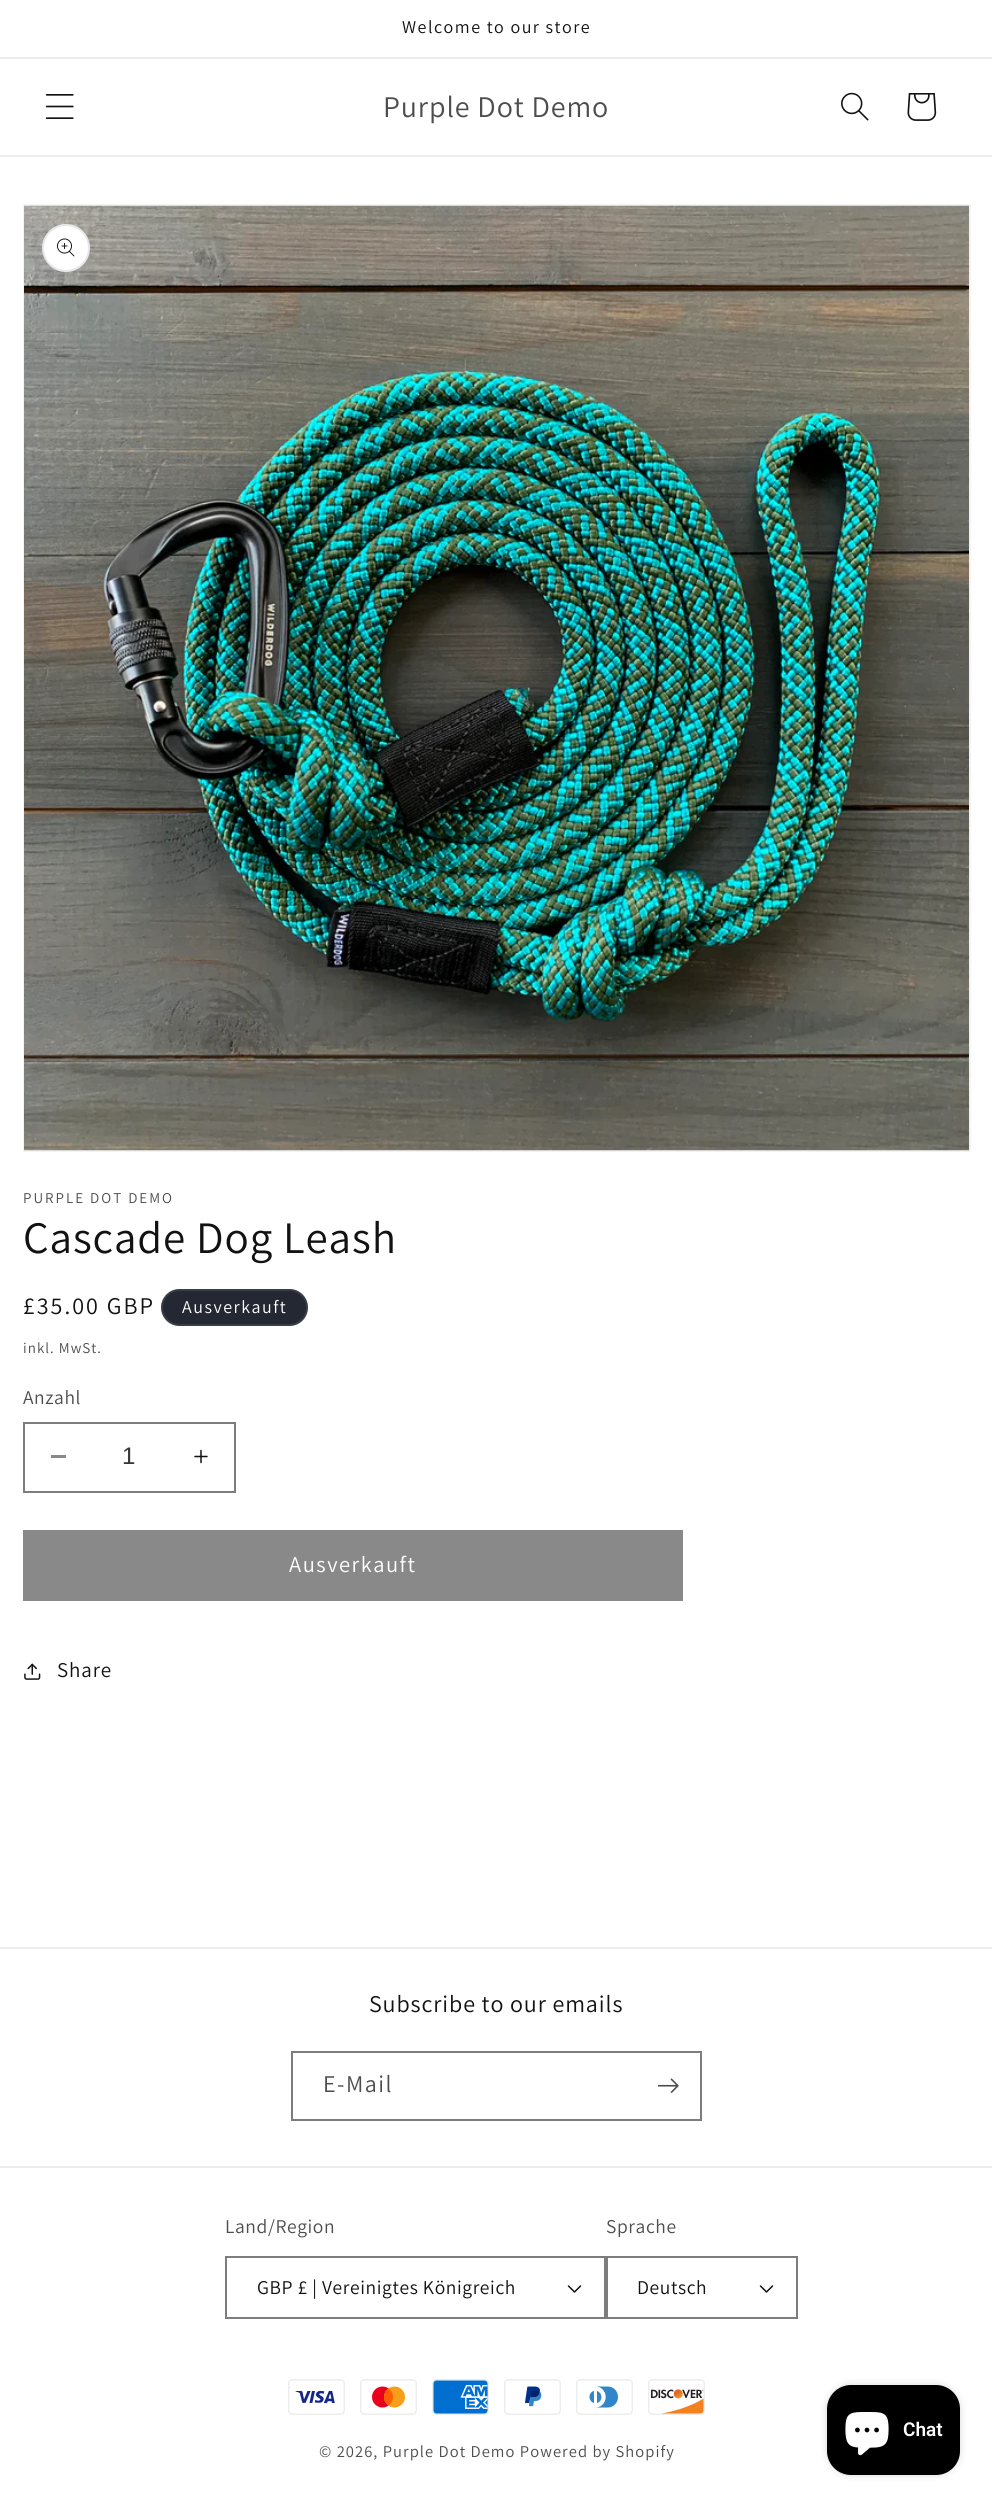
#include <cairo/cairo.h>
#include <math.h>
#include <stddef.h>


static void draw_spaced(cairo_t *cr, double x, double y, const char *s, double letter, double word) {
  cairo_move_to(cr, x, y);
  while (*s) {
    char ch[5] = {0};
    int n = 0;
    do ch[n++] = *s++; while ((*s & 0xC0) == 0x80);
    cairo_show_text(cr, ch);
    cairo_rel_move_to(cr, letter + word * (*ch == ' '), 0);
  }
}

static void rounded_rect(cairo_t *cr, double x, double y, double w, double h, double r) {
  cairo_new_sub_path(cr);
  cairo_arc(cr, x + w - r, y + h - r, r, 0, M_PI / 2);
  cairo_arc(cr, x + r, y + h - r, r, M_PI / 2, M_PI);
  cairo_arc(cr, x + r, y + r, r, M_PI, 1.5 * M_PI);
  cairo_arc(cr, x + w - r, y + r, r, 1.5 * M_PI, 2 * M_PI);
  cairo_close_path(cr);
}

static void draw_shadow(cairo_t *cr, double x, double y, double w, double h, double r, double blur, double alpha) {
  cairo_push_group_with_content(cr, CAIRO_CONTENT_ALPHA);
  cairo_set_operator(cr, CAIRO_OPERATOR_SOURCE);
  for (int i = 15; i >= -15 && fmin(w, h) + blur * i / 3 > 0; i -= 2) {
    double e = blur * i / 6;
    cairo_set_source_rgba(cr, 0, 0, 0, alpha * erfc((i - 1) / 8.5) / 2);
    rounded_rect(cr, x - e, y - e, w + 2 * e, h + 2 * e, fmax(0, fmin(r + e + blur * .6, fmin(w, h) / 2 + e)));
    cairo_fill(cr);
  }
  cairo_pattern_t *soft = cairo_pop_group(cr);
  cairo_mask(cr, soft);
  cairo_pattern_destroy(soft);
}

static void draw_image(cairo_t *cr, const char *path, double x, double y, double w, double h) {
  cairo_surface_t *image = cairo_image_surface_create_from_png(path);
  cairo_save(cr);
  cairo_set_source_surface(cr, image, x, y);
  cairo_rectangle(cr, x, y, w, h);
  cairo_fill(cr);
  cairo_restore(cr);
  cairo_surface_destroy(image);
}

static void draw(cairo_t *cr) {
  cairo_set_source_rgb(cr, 1, 1, 1);
  cairo_paint(cr);
  cairo_set_source_rgb(cr, 236 / 255.0, 236 / 255.0, 236 / 255.0);
  cairo_rectangle(cr, 0, 57, 992, 2);
  cairo_fill(cr);
  cairo_rectangle(cr, 0, 155, 992, 2);
  cairo_fill(cr);
  draw_image(cr, "images/1.png", 45, 94, 29, 25);
  draw_image(cr, "images/2.png", 841, 92, 28, 29);
  draw_image(cr, "images/3.png", 907, 93, 30, 28);
  cairo_rectangle(cr, 24, 205, 946, 946);
  cairo_set_source_rgb(cr, 243 / 255.0, 243 / 255.0, 243 / 255.0);
  cairo_stroke(cr);
  draw_image(cr, "images/4.png", 24, 205, 945, 946);
  cairo_set_source_rgb(cr, 1, 1, 1);
  cairo_arc(cr, 66, 248, 24, 0, 2 * M_PI);
  cairo_fill(cr);
  cairo_arc(cr, 66, 248, 23, 0, 2 * M_PI);
  cairo_set_source_rgba(cr, 18 / 255.0, 18 / 255.0, 18 / 255.0, 0.1);
  cairo_stroke(cr);
  draw_image(cr, "images/5.png", 57, 238, 18, 19);
  cairo_set_source_rgb(cr, 36 / 255.0, 40 / 255.0, 51 / 255.0);
  rounded_rect(cr, 161, 1289, 147, 37, 18.5);
  cairo_fill(cr);
  rounded_rect(cr, 162, 1290, 145, 35, 17.5);
  cairo_set_source_rgba(cr, 1, 1, 1, 0.1);
  cairo_stroke(cr);
  cairo_set_source_rgb(cr, 137 / 255.0, 137 / 255.0, 137 / 255.0);
  cairo_rectangle(cr, 51, 1455, 15, 3);
  cairo_fill(cr);
  draw_image(cr, "images/6.png", 194, 1449, 14, 15);
  cairo_rectangle(cr, 24, 1423, 211, 69);
  cairo_set_source_rgb(cr, 125 / 255.0, 125 / 255.0, 125 / 255.0);
  cairo_stroke(cr);
  cairo_set_source_rgb(cr, 137 / 255.0, 137 / 255.0, 137 / 255.0);
  cairo_rectangle(cr, 23, 1530, 660, 71);
  cairo_fill(cr);
  draw_image(cr, "images/7.png", 24, 1663, 17, 17);
  cairo_set_source_rgb(cr, 236 / 255.0, 236 / 255.0, 236 / 255.0);
  cairo_rectangle(cr, 0, 1947, 992, 2);
  cairo_fill(cr);
  cairo_rectangle(cr, 292, 2052, 409, 68);
  cairo_set_source_rgb(cr, 125 / 255.0, 125 / 255.0, 125 / 255.0);
  cairo_stroke(cr);
  draw_image(cr, "images/8.png", 657, 2078, 22, 15);
  cairo_set_source_rgb(cr, 236 / 255.0, 236 / 255.0, 236 / 255.0);
  cairo_rectangle(cr, 0, 2166, 992, 2);
  cairo_fill(cr);
  draw_image(cr, "images/9.png", 567, 2285, 15, 8);
  cairo_rectangle(cr, 226, 2257, 379, 61);
  cairo_set_source_rgb(cr, 125 / 255.0, 125 / 255.0, 125 / 255.0);
  cairo_stroke(cr);
  draw_image(cr, "images/9.png", 759, 2285, 15, 8);
  cairo_rectangle(cr, 607, 2257, 190, 61);
  cairo_stroke(cr);
  draw_image(cr, "images/10.png", 288, 2379, 57, 36);
  draw_image(cr, "images/11.png", 360, 2379, 57, 36);
  draw_image(cr, "images/12.png", 432, 2379, 57, 36);
  draw_image(cr, "images/13.png", 504, 2379, 57, 36);
  draw_image(cr, "images/14.png", 576, 2379, 57, 36);
  draw_image(cr, "images/15.png", 648, 2379, 57, 36);
  cairo_set_source_rgb(cr, 0, 0, 0);
  draw_shadow(cr, 827, 2385, 133, 90, 24, 4, 0.15);
  cairo_set_source_rgb(cr, 0, 0, 0);
  rounded_rect(cr, 827, 2385, 133, 90, 24);
  cairo_fill(cr);
  draw_image(cr, "images/16.png", 845, 2412, 44, 44);
  cairo_select_font_face(cr, "Assistant", CAIRO_FONT_SLANT_NORMAL, CAIRO_FONT_WEIGHT_NORMAL);
  cairo_set_font_size(cr, 18);
  cairo_set_source_rgb(cr, 18 / 255.0, 18 / 255.0, 18 / 255.0);
  draw_spaced(cr, 402, 33, "Welcome to our store", 1.5, 0);
  cairo_set_font_size(cr, 30);
  cairo_set_source_rgb(cr, 77 / 255.0, 77 / 255.0, 77 / 255.0);
  draw_spaced(cr, 383, 117, "Purple Dot Demo", 0.9, 0);
  cairo_set_font_size(cr, 15);
  draw_spaced(cr, 23, 1203, "PURPLE DOT DEMO", 2, 0);
  cairo_set_font_size(cr, 45);
  cairo_set_source_rgb(cr, 18 / 255.0, 18 / 255.0, 18 / 255.0);
  draw_spaced(cr, 23, 1253, "Cascade Dog Leash", 0.9, 0);
  cairo_set_font_size(cr, 24);
  draw_spaced(cr, 23, 1314, "£35.00 GBP", 2, 0);
  cairo_set_font_size(cr, 18);
  cairo_set_source_rgb(cr, 1, 1, 1);
  draw_spaced(cr, 182, 1313, "Ausverkauft", 1.5, 0);
  cairo_set_font_size(cr, 15);
  cairo_set_source_rgb(cr, 77 / 255.0, 77 / 255.0, 77 / 255.0);
  draw_spaced(cr, 23, 1353, "inkl. MwSt.", 1.05, 0);
  cairo_set_font_size(cr, 19.5);
  draw_spaced(cr, 23, 1404, "Anzahl", 0.6, 0);
  cairo_select_font_face(cr, "Liberation Sans", CAIRO_FONT_SLANT_NORMAL, CAIRO_FONT_WEIGHT_NORMAL);
  cairo_set_font_size(cr, 24);
  cairo_set_source_rgb(cr, 54 / 255.0, 54 / 255.0, 54 / 255.0);
  cairo_move_to(cr, 122, 1464);
  cairo_show_text(cr, "1");
  cairo_select_font_face(cr, "Assistant", CAIRO_FONT_SLANT_NORMAL, CAIRO_FONT_WEIGHT_NORMAL);
  cairo_set_font_size(cr, 22.5);
  cairo_set_source_rgb(cr, 1, 1, 1);
  draw_spaced(cr, 289, 1572, "Ausverkauft", 1.5, 0);
  cairo_set_font_size(cr, 21);
  cairo_set_source_rgb(cr, 18 / 255.0, 18 / 255.0, 18 / 255.0);
  draw_spaced(cr, 57, 1677, "Share", 0.9, 0);
  cairo_set_font_size(cr, 24);
  draw_spaced(cr, 369, 2012, "Subscribe to our emails", 0.9, 0);
  cairo_set_source_rgb(cr, 77 / 255.0, 77 / 255.0, 77 / 255.0);
  draw_spaced(cr, 323, 2092, "E-Mail", 1.5, 0);
  cairo_set_font_size(cr, 19.5);
  draw_spaced(cr, 225, 2233, "Land/Region", 0.6, 0);
  cairo_set_source_rgb(cr, 18 / 255.0, 18 / 255.0, 18 / 255.0);
  draw_spaced(cr, 257, 2294, "GBP £ | Vereinigtes Königreich", 0.6, 0);
  cairo_set_source_rgb(cr, 77 / 255.0, 77 / 255.0, 77 / 255.0);
  draw_spaced(cr, 606, 2233, "Sprache", 0.6, 0);
  cairo_set_source_rgb(cr, 18 / 255.0, 18 / 255.0, 18 / 255.0);
  draw_spaced(cr, 637, 2294, "Deutsch", 0.6, 0);
  cairo_set_font_size(cr, 16.5);
  cairo_set_source_rgb(cr, 77 / 255.0, 77 / 255.0, 77 / 255.0);
  draw_spaced(cr, 319, 2457, "© 2026, Purple Dot Demo Powered by Shopify", 1.05, 0);
  cairo_select_font_face(cr, "Roboto SemiBold", CAIRO_FONT_SLANT_NORMAL, CAIRO_FONT_WEIGHT_NORMAL);
  cairo_set_font_size(cr, 19);
  cairo_set_source_rgb(cr, 1, 1, 1);
  cairo_move_to(cr, 903, 2436);
  cairo_show_text(cr, "Chat");
}

int main(void) {
  cairo_surface_t *surface = cairo_image_surface_create(CAIRO_FORMAT_RGB24, 992, 2506);
  cairo_t *cr = cairo_create(surface);
  cairo_font_options_t *options = cairo_font_options_create();
  cairo_font_options_set_hint_metrics(options, CAIRO_HINT_METRICS_OFF);
  cairo_font_options_set_hint_style(options, CAIRO_HINT_STYLE_NONE);
  cairo_set_font_options(cr, options);
  cairo_set_miter_limit(cr, 4);
  draw(cr);
  cairo_surface_write_to_png(surface, "out.png");
  cairo_font_options_destroy(options);
  cairo_destroy(cr);
  cairo_surface_destroy(surface);
  return 0;
}
